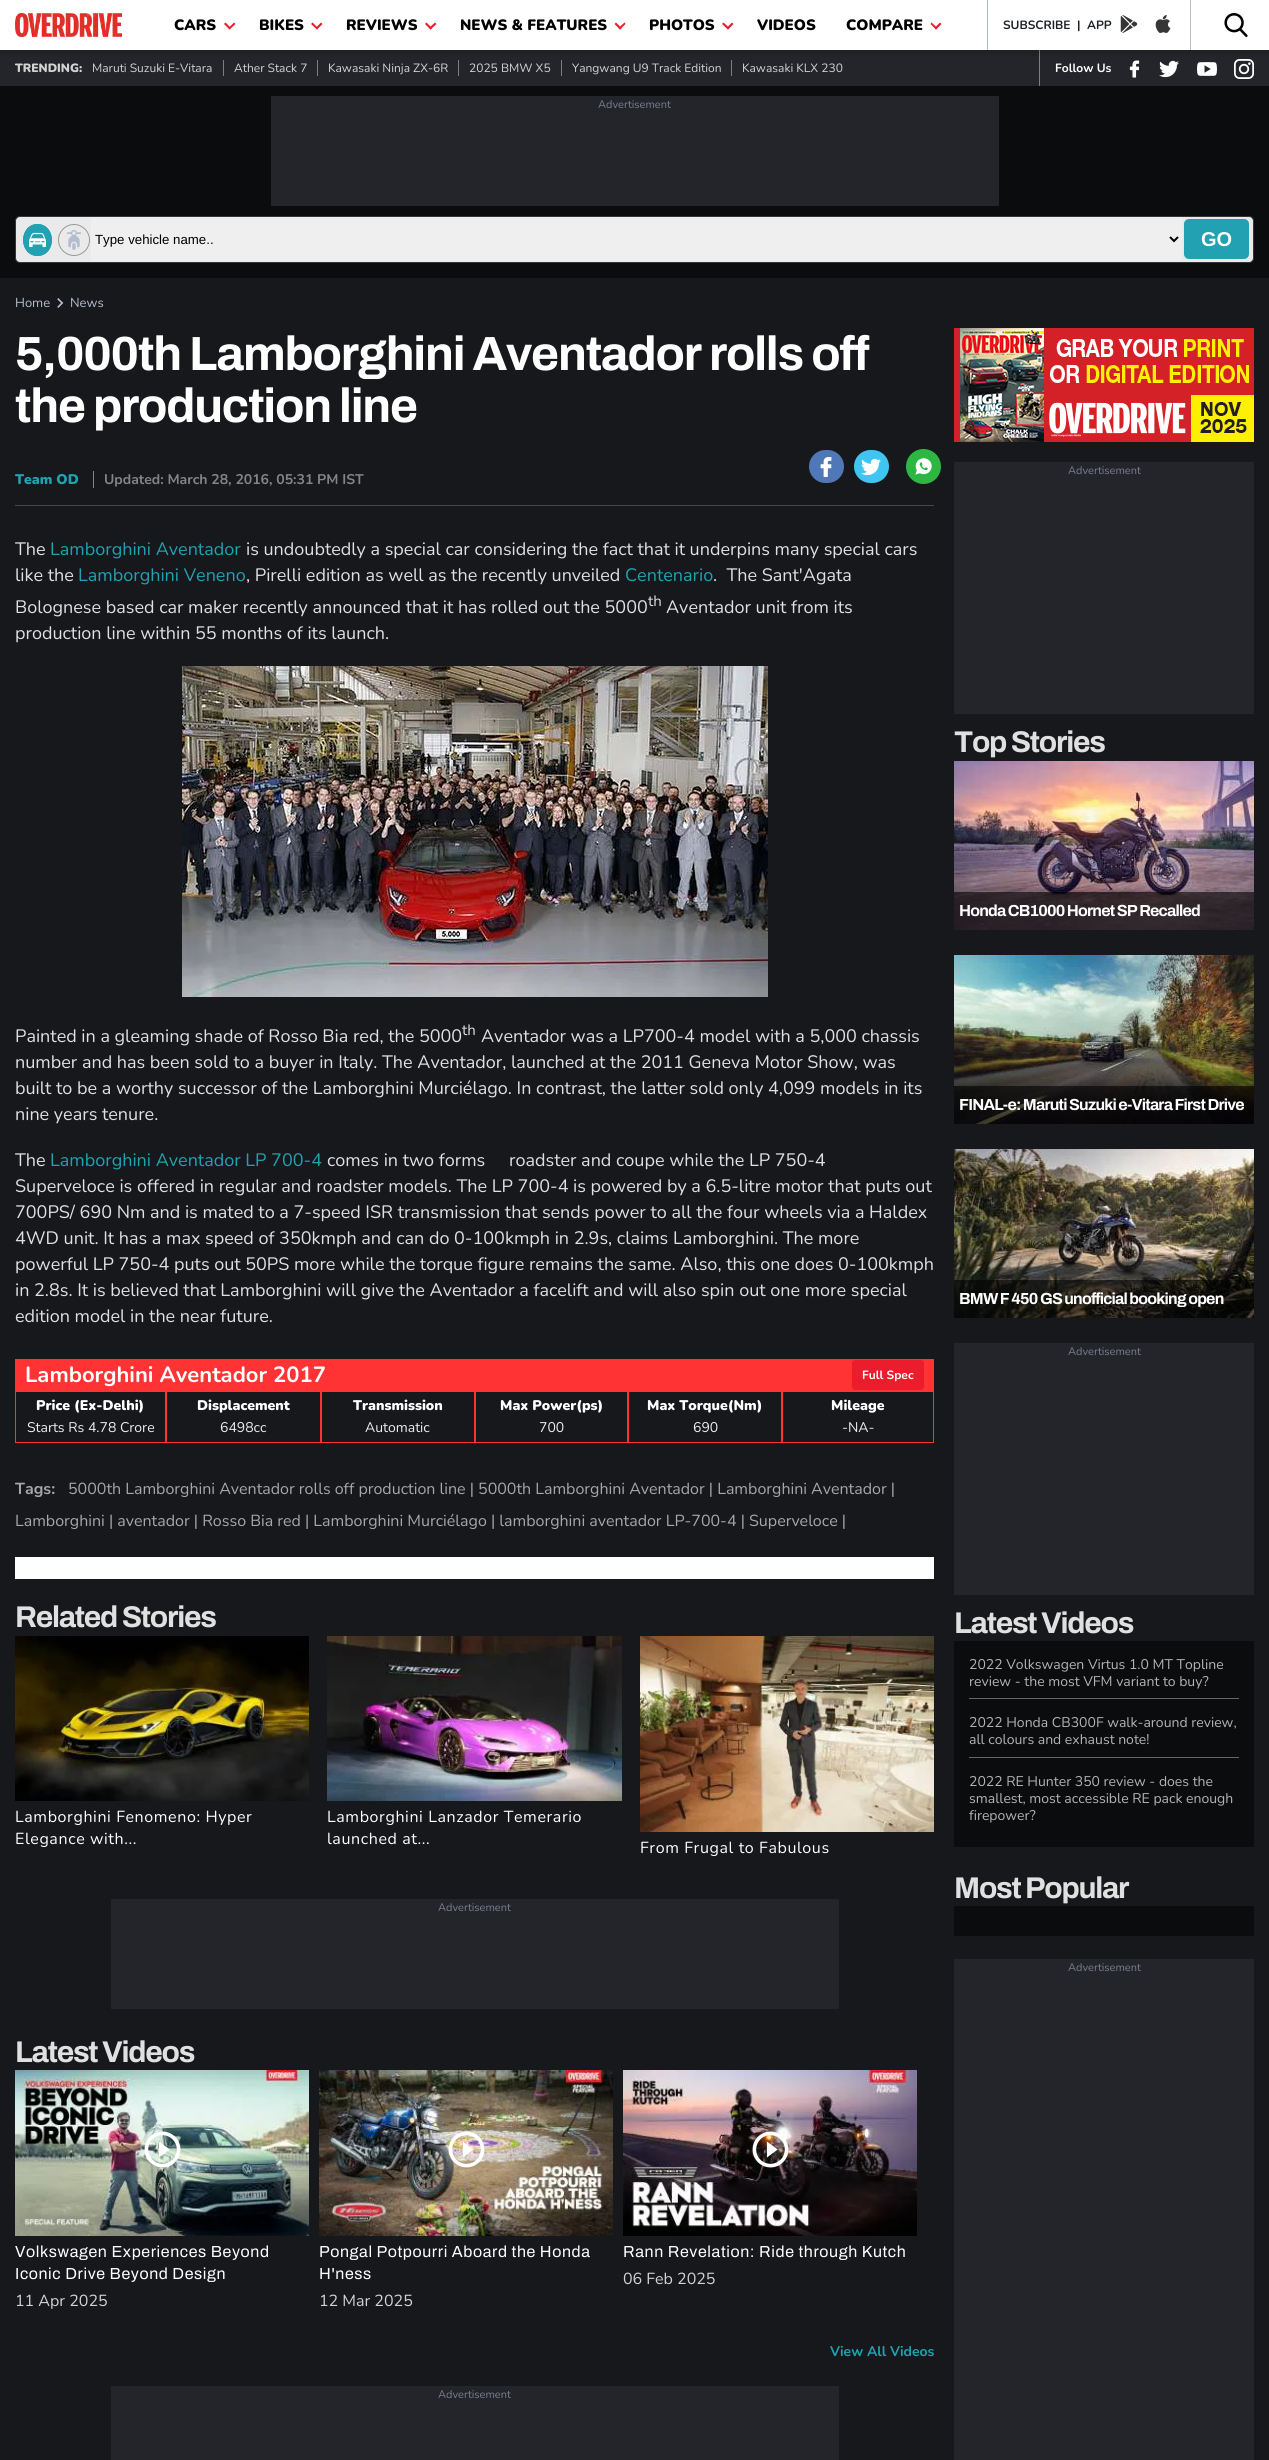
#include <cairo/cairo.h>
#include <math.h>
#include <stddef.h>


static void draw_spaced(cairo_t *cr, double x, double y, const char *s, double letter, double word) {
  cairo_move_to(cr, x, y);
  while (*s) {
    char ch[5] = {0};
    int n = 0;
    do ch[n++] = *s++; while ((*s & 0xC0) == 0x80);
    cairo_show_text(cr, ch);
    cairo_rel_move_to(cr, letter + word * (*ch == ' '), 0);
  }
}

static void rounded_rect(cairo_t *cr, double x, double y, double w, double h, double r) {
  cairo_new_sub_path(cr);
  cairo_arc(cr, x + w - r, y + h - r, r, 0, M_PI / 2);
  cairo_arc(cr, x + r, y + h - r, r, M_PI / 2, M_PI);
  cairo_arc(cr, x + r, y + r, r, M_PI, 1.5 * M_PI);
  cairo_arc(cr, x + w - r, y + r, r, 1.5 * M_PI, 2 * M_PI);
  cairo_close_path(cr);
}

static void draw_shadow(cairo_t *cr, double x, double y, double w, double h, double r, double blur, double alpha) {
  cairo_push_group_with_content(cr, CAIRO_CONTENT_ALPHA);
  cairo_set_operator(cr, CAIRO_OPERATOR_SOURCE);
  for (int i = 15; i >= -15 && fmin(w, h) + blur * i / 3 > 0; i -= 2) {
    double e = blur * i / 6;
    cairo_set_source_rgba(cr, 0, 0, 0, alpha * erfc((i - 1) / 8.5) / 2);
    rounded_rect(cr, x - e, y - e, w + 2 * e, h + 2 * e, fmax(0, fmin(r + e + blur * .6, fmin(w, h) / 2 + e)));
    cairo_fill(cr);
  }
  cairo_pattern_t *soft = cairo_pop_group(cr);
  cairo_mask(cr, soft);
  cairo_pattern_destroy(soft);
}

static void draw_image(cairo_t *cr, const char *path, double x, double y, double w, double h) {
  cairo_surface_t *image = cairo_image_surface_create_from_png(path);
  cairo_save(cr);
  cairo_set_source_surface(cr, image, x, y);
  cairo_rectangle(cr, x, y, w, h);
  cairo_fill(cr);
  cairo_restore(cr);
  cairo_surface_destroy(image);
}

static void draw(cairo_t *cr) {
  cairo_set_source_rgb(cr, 11 / 255.0, 12 / 255.0, 14 / 255.0);
  cairo_paint(cr);
  cairo_set_source_rgb(cr, 35 / 255.0, 37 / 255.0, 42 / 255.0);
  cairo_rectangle(cr, 0, 50, 1269, 36);
  cairo_fill(cr);
  cairo_set_source_rgb(cr, 126 / 255.0, 126 / 255.0, 126 / 255.0);
  cairo_rectangle(cr, 223, 60, 1, 16);
  cairo_fill(cr);
  cairo_rectangle(cr, 317, 60, 1, 16);
  cairo_fill(cr);
  cairo_rectangle(cr, 458, 60, 1, 16);
  cairo_fill(cr);
  cairo_rectangle(cr, 561, 60, 1, 16);
  cairo_fill(cr);
  cairo_rectangle(cr, 731, 60, 1, 16);
  cairo_fill(cr);
  cairo_rectangle(cr, 1039, 50, 1, 36);
  cairo_fill(cr);
  draw_image(cr, "images/5.png", 1129, 60, 11, 18);
  draw_image(cr, "images/6.png", 1159, 60, 20, 18);
  draw_image(cr, "images/7.png", 1197, 62, 20, 14);
  draw_image(cr, "images/8.png", 1234, 59, 20, 20);
  cairo_set_source_rgb(cr, 0, 0, 0);
  draw_shadow(cr, 0, 3, 1269, 50, 0, 3, 0.16);
  cairo_set_source_rgb(cr, 1, 1, 1);
  cairo_rectangle(cr, 0, 0, 1269, 50);
  cairo_fill(cr);
  draw_image(cr, "images/1.png", 15, 13, 107, 24);
  cairo_set_source_rgb(cr, 235 / 255.0, 28 / 255.0, 44 / 255.0);
  cairo_new_path(cr);
  cairo_move_to(cr, 234, 22.5);
  cairo_line_to(cr, 235.5, 24);
  cairo_line_to(cr, 229.5, 29.5);
  cairo_line_to(cr, 228.5, 28);
  cairo_close_path(cr);
  cairo_fill(cr);
  cairo_new_path(cr);
  cairo_move_to(cr, 225.5, 22.5);
  cairo_line_to(cr, 231, 28);
  cairo_line_to(cr, 229.5, 29.5);
  cairo_line_to(cr, 224, 24);
  cairo_close_path(cr);
  cairo_fill(cr);
  cairo_new_path(cr);
  cairo_move_to(cr, 321, 22.5);
  cairo_line_to(cr, 322.5, 24);
  cairo_line_to(cr, 317, 29.5);
  cairo_line_to(cr, 315.5, 28);
  cairo_close_path(cr);
  cairo_fill(cr);
  cairo_new_path(cr);
  cairo_move_to(cr, 312.5, 22.5);
  cairo_line_to(cr, 318, 28);
  cairo_line_to(cr, 317, 29.5);
  cairo_line_to(cr, 311, 24);
  cairo_close_path(cr);
  cairo_fill(cr);
  cairo_new_path(cr);
  cairo_move_to(cr, 435, 22.5);
  cairo_line_to(cr, 436.5, 24);
  cairo_line_to(cr, 430.5, 29.5);
  cairo_line_to(cr, 429, 28);
  cairo_close_path(cr);
  cairo_fill(cr);
  cairo_new_path(cr);
  cairo_move_to(cr, 426.5, 22.5);
  cairo_line_to(cr, 432, 28);
  cairo_line_to(cr, 430.5, 29.5);
  cairo_line_to(cr, 425, 24);
  cairo_close_path(cr);
  cairo_fill(cr);
  cairo_new_path(cr);
  cairo_move_to(cr, 624.5, 22.5);
  cairo_line_to(cr, 625.5, 24);
  cairo_line_to(cr, 620, 29.5);
  cairo_line_to(cr, 618.5, 28);
  cairo_close_path(cr);
  cairo_fill(cr);
  cairo_new_path(cr);
  cairo_move_to(cr, 616, 22.5);
  cairo_line_to(cr, 621.5, 28);
  cairo_line_to(cr, 620, 29.5);
  cairo_line_to(cr, 614.5, 24);
  cairo_close_path(cr);
  cairo_fill(cr);
  cairo_new_path(cr);
  cairo_move_to(cr, 732, 22.5);
  cairo_line_to(cr, 733.5, 24);
  cairo_line_to(cr, 728, 29.5);
  cairo_line_to(cr, 726.5, 28);
  cairo_close_path(cr);
  cairo_fill(cr);
  cairo_new_path(cr);
  cairo_move_to(cr, 723.5, 22.5);
  cairo_line_to(cr, 729.5, 28);
  cairo_line_to(cr, 728, 29.5);
  cairo_line_to(cr, 722, 24);
  cairo_close_path(cr);
  cairo_fill(cr);
  cairo_new_path(cr);
  cairo_move_to(cr, 940, 22.5);
  cairo_line_to(cr, 941.5, 24);
  cairo_line_to(cr, 936, 29.5);
  cairo_line_to(cr, 934.5, 28);
  cairo_close_path(cr);
  cairo_fill(cr);
  cairo_new_path(cr);
  cairo_move_to(cr, 931.5, 22.5);
  cairo_line_to(cr, 937.5, 28);
  cairo_line_to(cr, 936, 29.5);
  cairo_line_to(cr, 930.5, 24);
  cairo_close_path(cr);
  cairo_fill(cr);
  cairo_set_source_rgb(cr, 180 / 255.0, 189 / 255.0, 206 / 255.0);
  cairo_rectangle(cr, 1190, 0, 1, 50);
  cairo_fill(cr);
  cairo_rectangle(cr, 987, 0, 1, 50);
  cairo_fill(cr);
  draw_image(cr, "images/2.png", 1120, 15, 18, 18);
  draw_image(cr, "images/3.png", 1155, 15, 16, 18);
  draw_image(cr, "images/4.png", 1224, 13, 24, 24);
  cairo_set_source_rgb(cr, 35 / 255.0, 37 / 255.0, 42 / 255.0);
  cairo_rectangle(cr, 271, 96, 728, 110);
  cairo_fill(cr);
  cairo_set_source_rgb(cr, 234 / 255.0, 234 / 255.0, 234 / 255.0);
  rounded_rect(cr, 15.5, 216.5, 1238, 46, 4.5);
  cairo_fill_preserve(cr);
  cairo_set_source_rgb(cr, 54 / 255.0, 54 / 255.0, 54 / 255.0);
  cairo_set_line_width(cr, 1);
  cairo_stroke(cr);
  cairo_set_source_rgb(cr, 33 / 255.0, 161 / 255.0, 177 / 255.0);
  cairo_new_path(cr);
  cairo_move_to(cr, 37.5, 224);
  cairo_curve_to(cr, 45.5, 224, 52, 231, 52, 240);
  cairo_curve_to(cr, 52, 249, 45.5, 256, 37.5, 256);
  cairo_curve_to(cr, 29.5, 256, 23, 249, 23, 240);
  cairo_curve_to(cr, 23, 231, 29.5, 224, 37.5, 224);
  cairo_close_path(cr);
  cairo_fill(cr);
  cairo_new_path(cr);
  cairo_move_to(cr, 37.5, 224.5);
  cairo_curve_to(cr, 56, 224.5, 56, 255.5, 37.5, 255.5);
  cairo_curve_to(cr, 19, 255.5, 19, 224.5, 37.5, 224.5);
  cairo_close_path(cr);
  cairo_stroke(cr);
  draw_image(cr, "images/9.png", 29, 232, 17, 16);
  cairo_arc(cr, 74, 240, 15.5, 0, 2 * M_PI);
  cairo_set_source_rgb(cr, 153 / 255.0, 153 / 255.0, 153 / 255.0);
  cairo_stroke(cr);
  draw_image(cr, "images/10.png", 66, 230, 16, 20);
  cairo_set_source_rgb(cr, 239 / 255.0, 239 / 255.0, 239 / 255.0);
  cairo_rectangle(cr, 91, 217, 1091, 44);
  cairo_fill(cr);
  cairo_new_path(cr);
  cairo_move_to(cr, 1170, 237);
  cairo_line_to(cr, 1174, 241);
  cairo_line_to(cr, 1178, 237);
  cairo_set_source_rgb(cr, 0, 0, 0);
  cairo_set_line_width(cr, 2);
  cairo_stroke(cr);
  cairo_set_source_rgb(cr, 33 / 255.0, 161 / 255.0, 177 / 255.0);
  rounded_rect(cr, 1184, 219, 65, 40, 5);
  cairo_fill(cr);
  cairo_set_source_rgb(cr, 23 / 255.0, 24 / 255.0, 28 / 255.0);
  cairo_rectangle(cr, 0, 278, 1269, 2182);
  cairo_fill(cr);
  draw_image(cr, "images/11.png", 57, 298, 7, 10);
  cairo_set_source_rgb(cr, 66 / 255.0, 72 / 255.0, 76 / 255.0);
  cairo_rectangle(cr, 15, 505, 919, 1);
  cairo_fill(cr);
  cairo_set_source_rgb(cr, 132 / 255.0, 132 / 255.0, 132 / 255.0);
  cairo_rectangle(cr, 93, 471, 1, 17);
  cairo_fill(cr);
  cairo_set_source_rgb(cr, 80 / 255.0, 120 / 255.0, 184 / 255.0);
  rounded_rect(cr, 809, 450, 35, 33, 16.5);
  cairo_fill(cr);
  draw_image(cr, "images/12.png", 820, 457, 12, 20);
  cairo_set_source_rgb(cr, 62 / 255.0, 197 / 255.0, 241 / 255.0);
  rounded_rect(cr, 854, 450, 35, 33, 16.5);
  cairo_fill(cr);
  draw_image(cr, "images/13.png", 861, 458, 20, 18);
  draw_image(cr, "images/14.png", 906, 449, 35, 35);
  draw_image(cr, "images/15.png", 182, 666, 586, 331);
  cairo_set_source_rgb(cr, 1, 51 / 255.0, 51 / 255.0);
  cairo_rectangle(cr, 15, 1359, 919, 32);
  cairo_fill(cr);
  cairo_set_source_rgb(cr, 235 / 255.0, 28 / 255.0, 44 / 255.0);
  rounded_rect(cr, 852, 1360, 72, 30, 3);
  cairo_fill(cr);
  cairo_rectangle(cr, 15.5, 1391.5, 150, 51);
  cairo_set_source_rgb(cr, 1, 51 / 255.0, 51 / 255.0);
  cairo_set_line_width(cr, 1);
  cairo_stroke(cr);
  cairo_rectangle(cr, 166.5, 1391.5, 154, 51);
  cairo_stroke(cr);
  cairo_rectangle(cr, 321.5, 1391.5, 153, 51);
  cairo_stroke(cr);
  cairo_rectangle(cr, 475.5, 1391.5, 152, 51);
  cairo_stroke(cr);
  cairo_rectangle(cr, 628.5, 1391.5, 153, 51);
  cairo_stroke(cr);
  cairo_rectangle(cr, 782.5, 1391.5, 151, 51);
  cairo_stroke(cr);
  cairo_set_source_rgb(cr, 1, 1, 1);
  cairo_rectangle(cr, 15, 1557, 919, 22);
  cairo_fill(cr);
  draw_image(cr, "images/16.png", 15, 1636, 294, 165);
  draw_image(cr, "images/17.png", 327, 1636, 295, 165);
  draw_image(cr, "images/18.png", 640, 1636, 294, 196);
  cairo_set_source_rgb(cr, 35 / 255.0, 37 / 255.0, 42 / 255.0);
  cairo_rectangle(cr, 111, 1899, 728, 110);
  cairo_fill(cr);
  draw_image(cr, "images/19.png", 15, 2070, 294, 166);
  draw_image(cr, "images/20.png", 144, 2131, 37, 37);
  draw_image(cr, "images/21.png", 319, 2070, 294, 166);
  draw_image(cr, "images/22.png", 448, 2131, 37, 37);
  draw_image(cr, "images/23.png", 623, 2070, 294, 166);
  draw_image(cr, "images/24.png", 752, 2131, 37, 37);
  cairo_rectangle(cr, 111, 2386, 728, 74);
  cairo_fill(cr);
  draw_image(cr, "images/25.png", 954, 328, 300, 114);
  cairo_rectangle(cr, 954, 462, 300, 252);
  cairo_fill(cr);
  draw_image(cr, "images/26.png", 954, 761, 300, 169);
  cairo_set_source_rgba(cr, 0, 0, 0, 0.59);
  cairo_rectangle(cr, 954, 892, 300, 38);
  cairo_fill(cr);
  draw_image(cr, "images/27.png", 954, 955, 300, 169);
  cairo_rectangle(cr, 954, 1086, 300, 38);
  cairo_fill(cr);
  draw_image(cr, "images/28.png", 954, 1149, 300, 169);
  cairo_rectangle(cr, 954, 1280, 300, 38);
  cairo_fill(cr);
  cairo_set_source_rgb(cr, 35 / 255.0, 37 / 255.0, 42 / 255.0);
  cairo_rectangle(cr, 954, 1343, 300, 252);
  cairo_fill(cr);
  cairo_set_source_rgb(cr, 11 / 255.0, 12 / 255.0, 14 / 255.0);
  cairo_rectangle(cr, 954, 1641, 300, 206);
  cairo_fill(cr);
  cairo_set_source_rgb(cr, 101 / 255.0, 102 / 255.0, 102 / 255.0);
  cairo_rectangle(cr, 969, 1698, 270, 1);
  cairo_fill(cr);
  cairo_rectangle(cr, 969, 1757, 270, 1);
  cairo_fill(cr);
  cairo_set_source_rgb(cr, 11 / 255.0, 12 / 255.0, 14 / 255.0);
  cairo_rectangle(cr, 954, 1906, 300, 30);
  cairo_fill(cr);
  cairo_set_source_rgb(cr, 35 / 255.0, 37 / 255.0, 42 / 255.0);
  cairo_rectangle(cr, 954, 1959, 300, 501);
  cairo_fill(cr);
  cairo_select_font_face(cr, "Nunito Black", CAIRO_FONT_SLANT_NORMAL, CAIRO_FONT_WEIGHT_NORMAL);
  cairo_set_font_size(cr, 15);
  cairo_set_source_rgb(cr, 0, 0, 0);
  cairo_move_to(cr, 174, 30);
  cairo_show_text(cr, "CARS");
  cairo_move_to(cr, 259, 30);
  cairo_show_text(cr, "BIKES");
  cairo_move_to(cr, 346, 30);
  cairo_show_text(cr, "REVIEWS");
  cairo_move_to(cr, 460, 30);
  cairo_show_text(cr, "NEWS & FEATURES");
  cairo_move_to(cr, 649, 30);
  cairo_show_text(cr, "PHOTOS");
  cairo_move_to(cr, 757, 30);
  cairo_show_text(cr, "VIDEOS");
  cairo_move_to(cr, 846, 30);
  cairo_show_text(cr, "COMPARE");
  cairo_select_font_face(cr, "Nunito", CAIRO_FONT_SLANT_NORMAL, CAIRO_FONT_WEIGHT_BOLD);
  cairo_set_font_size(cr, 12);
  cairo_set_source_rgb(cr, 29 / 255.0, 33 / 255.0, 38 / 255.0);
  cairo_move_to(cr, 1003, 29);
  cairo_show_text(cr, "SUBSCRIBE");
  cairo_move_to(cr, 1077, 29);
  cairo_show_text(cr, "|");
  cairo_move_to(cr, 1087, 29);
  cairo_show_text(cr, "APP");
  cairo_select_font_face(cr, "Nunito Black", CAIRO_FONT_SLANT_NORMAL, CAIRO_FONT_WEIGHT_NORMAL);
  cairo_set_source_rgb(cr, 211 / 255.0, 211 / 255.0, 211 / 255.0);
  cairo_move_to(cr, 15, 72);
  cairo_show_text(cr, "TRENDING:");
  cairo_select_font_face(cr, "Nunito", CAIRO_FONT_SLANT_NORMAL, CAIRO_FONT_WEIGHT_NORMAL);
  cairo_move_to(cr, 92, 72);
  cairo_show_text(cr, "Maruti Suzuki E-Vitara");
  cairo_move_to(cr, 234, 72);
  cairo_show_text(cr, "Ather Stack 7");
  cairo_move_to(cr, 328, 72);
  cairo_show_text(cr, "Kawasaki Ninja ZX-6R");
  cairo_move_to(cr, 469, 72);
  cairo_show_text(cr, "2025 BMW X5");
  cairo_move_to(cr, 572, 72);
  cairo_show_text(cr, "Yangwang U9 Track Edition");
  cairo_move_to(cr, 742, 72);
  cairo_show_text(cr, "Kawasaki KLX 230");
  cairo_select_font_face(cr, "Nunito", CAIRO_FONT_SLANT_NORMAL, CAIRO_FONT_WEIGHT_BOLD);
  cairo_set_source_rgb(cr, 1, 1, 1);
  cairo_move_to(cr, 1055, 72);
  cairo_show_text(cr, "Follow Us");
  cairo_select_font_face(cr, "Nunito", CAIRO_FONT_SLANT_NORMAL, CAIRO_FONT_WEIGHT_NORMAL);
  cairo_set_font_size(cr, 11);
  cairo_set_source_rgb(cr, 121 / 255.0, 126 / 255.0, 144 / 255.0);
  cairo_move_to(cr, 598, 108);
  cairo_show_text(cr, "Advertisement");
  cairo_select_font_face(cr, "Liberation Sans", CAIRO_FONT_SLANT_NORMAL, CAIRO_FONT_WEIGHT_NORMAL);
  cairo_set_font_size(cr, 13.25);
  cairo_set_source_rgb(cr, 0, 0, 0);
  cairo_move_to(cr, 95, 244);
  cairo_show_text(cr, "Type vehicle name..");
  cairo_select_font_face(cr, "Liberation Sans", CAIRO_FONT_SLANT_NORMAL, CAIRO_FONT_WEIGHT_BOLD);
  cairo_set_font_size(cr, 20);
  cairo_set_source_rgb(cr, 1, 1, 1);
  cairo_move_to(cr, 1201, 246);
  cairo_show_text(cr, "GO");
  cairo_select_font_face(cr, "Nunito", CAIRO_FONT_SLANT_NORMAL, CAIRO_FONT_WEIGHT_NORMAL);
  cairo_set_font_size(cr, 13);
  cairo_set_source_rgb(cr, 180 / 255.0, 189 / 255.0, 206 / 255.0);
  cairo_move_to(cr, 15, 307);
  cairo_show_text(cr, "Home");
  cairo_move_to(cr, 70, 307);
  cairo_show_text(cr, "News");
  cairo_select_font_face(cr, "Archivo", CAIRO_FONT_SLANT_NORMAL, CAIRO_FONT_WEIGHT_BOLD);
  cairo_set_font_size(cr, 48);
  cairo_set_source_rgb(cr, 1, 1, 1);
  draw_spaced(cr, 15, 370, "5,000th Lamborghini Aventador rolls off", -1.2, 0);
  draw_spaced(cr, 15, 422, "the production line", -1.2, 0);
  cairo_select_font_face(cr, "Nunito Black", CAIRO_FONT_SLANT_NORMAL, CAIRO_FONT_WEIGHT_NORMAL);
  cairo_set_font_size(cr, 14);
  cairo_set_source_rgb(cr, 33 / 255.0, 161 / 255.0, 177 / 255.0);
  cairo_move_to(cr, 15, 484);
  cairo_show_text(cr, "Team OD");
  cairo_select_font_face(cr, "Nunito", CAIRO_FONT_SLANT_NORMAL, CAIRO_FONT_WEIGHT_BOLD);
  cairo_set_source_rgb(cr, 132 / 255.0, 132 / 255.0, 132 / 255.0);
  cairo_move_to(cr, 104, 484);
  cairo_show_text(cr, "Updated: March 28, 2016, 05:31 PM IST");
  cairo_select_font_face(cr, "Nunito", CAIRO_FONT_SLANT_NORMAL, CAIRO_FONT_WEIGHT_NORMAL);
  cairo_set_font_size(cr, 18);
  cairo_set_source_rgb(cr, 224 / 255.0, 224 / 255.0, 224 / 255.0);
  cairo_move_to(cr, 15, 555);
  cairo_show_text(cr, "The");
  cairo_set_source_rgb(cr, 33 / 255.0, 161 / 255.0, 177 / 255.0);
  cairo_move_to(cr, 50, 555);
  cairo_show_text(cr, "Lamborghini Aventador");
  cairo_set_source_rgb(cr, 224 / 255.0, 224 / 255.0, 224 / 255.0);
  cairo_move_to(cr, 246, 555);
  cairo_show_text(cr, "is undoubtedly a special car considering the fact that it underpins many special cars");
  cairo_move_to(cr, 15, 581);
  cairo_show_text(cr, "like the");
  cairo_set_source_rgb(cr, 33 / 255.0, 161 / 255.0, 177 / 255.0);
  cairo_move_to(cr, 78, 581);
  cairo_show_text(cr, "Lamborghini Veneno");
  cairo_set_source_rgb(cr, 224 / 255.0, 224 / 255.0, 224 / 255.0);
  cairo_move_to(cr, 246, 581);
  cairo_show_text(cr, ", Pirelli edition as well as the recently unveiled");
  cairo_set_source_rgb(cr, 33 / 255.0, 161 / 255.0, 177 / 255.0);
  cairo_move_to(cr, 625, 581);
  cairo_show_text(cr, "Centenario");
  cairo_set_source_rgb(cr, 224 / 255.0, 224 / 255.0, 224 / 255.0);
  cairo_move_to(cr, 713, 581);
  cairo_show_text(cr, ".  The Sant'Agata");
  cairo_move_to(cr, 15, 613);
  cairo_show_text(cr, "Bolognese based car maker recently announced that it has rolled out the 5000");
  cairo_set_font_size(cr, 15);
  cairo_move_to(cr, 648, 606);
  cairo_show_text(cr, "th");
  cairo_set_font_size(cr, 18);
  cairo_move_to(cr, 666, 613);
  cairo_show_text(cr, "Aventador unit from its");
  cairo_move_to(cr, 15, 639);
  cairo_show_text(cr, "production line within 55 months of its launch.");
  cairo_move_to(cr, 15, 1042);
  cairo_show_text(cr, "Painted in a gleaming shade of Rosso Bia red, the 5000");
  cairo_set_font_size(cr, 15);
  cairo_move_to(cr, 462, 1035);
  cairo_show_text(cr, "th");
  cairo_set_font_size(cr, 18);
  cairo_move_to(cr, 481, 1042);
  cairo_show_text(cr, "Aventador was a LP700-4 model with a 5,000 chassis");
  cairo_move_to(cr, 15, 1068);
  cairo_show_text(cr, "number and has been sold to a buyer in Italy. The Aventador, launched at the 2011 Geneva Motor Show, was");
  cairo_move_to(cr, 15, 1094);
  cairo_show_text(cr, "built to be a worthy successor of the Lamborghini Murciélago. In contrast, the latter sold only 4,099 models in its");
  cairo_move_to(cr, 15, 1120);
  cairo_show_text(cr, "nine years tenure.");
  cairo_move_to(cr, 15, 1166);
  cairo_show_text(cr, "The");
  cairo_set_source_rgb(cr, 33 / 255.0, 161 / 255.0, 177 / 255.0);
  cairo_move_to(cr, 50, 1166);
  cairo_show_text(cr, "Lamborghini Aventador LP 700-4");
  cairo_set_source_rgb(cr, 224 / 255.0, 224 / 255.0, 224 / 255.0);
  cairo_move_to(cr, 327, 1166);
  cairo_show_text(cr, "comes in two forms");
  cairo_move_to(cr, 509, 1166);
  cairo_show_text(cr, "roadster and coupe while the LP 750-4");
  cairo_move_to(cr, 15, 1192);
  cairo_show_text(cr, "Superveloce is offered in regular and roadster models. The LP 700-4 is powered by a 6.5-litre motor that puts out");
  cairo_move_to(cr, 15, 1218);
  cairo_show_text(cr, "700PS/ 690 Nm and is mated to a 7-speed ISR transmission that sends power to all the four wheels via a Haldex");
  cairo_move_to(cr, 15, 1244);
  cairo_show_text(cr, "4WD unit. It has a max speed of 350kmph and can do 0-100kmph in 2.9s, claims Lamborghini. The more");
  cairo_move_to(cr, 15, 1270);
  cairo_show_text(cr, "powerful LP 750-4 puts out 50PS more while the torque figure remains the same. Also, this one does 0-100kmph");
  cairo_move_to(cr, 15, 1296);
  cairo_show_text(cr, "in 2.8s. It is believed that Lamborghini will give the Aventador a facelift and will also spin out one more special");
  cairo_move_to(cr, 15, 1322);
  cairo_show_text(cr, "edition model in the near future.");
  cairo_select_font_face(cr, "Nunito", CAIRO_FONT_SLANT_NORMAL, CAIRO_FONT_WEIGHT_BOLD);
  cairo_set_font_size(cr, 22);
  cairo_set_source_rgb(cr, 1, 1, 1);
  cairo_move_to(cr, 25, 1382);
  cairo_show_text(cr, "Lamborghini Aventador 2017");
  cairo_set_font_size(cr, 12);
  cairo_move_to(cr, 862, 1379);
  cairo_show_text(cr, "Full Spec");
  cairo_select_font_face(cr, "Nunito Black", CAIRO_FONT_SLANT_NORMAL, CAIRO_FONT_WEIGHT_NORMAL);
  cairo_set_font_size(cr, 14);
  cairo_move_to(cr, 36, 1410);
  cairo_show_text(cr, "Price (Ex-Delhi)");
  cairo_select_font_face(cr, "Nunito", CAIRO_FONT_SLANT_NORMAL, CAIRO_FONT_WEIGHT_NORMAL);
  cairo_set_source_rgb(cr, 237 / 255.0, 237 / 255.0, 237 / 255.0);
  cairo_move_to(cr, 27, 1432);
  cairo_show_text(cr, "Starts Rs 4.78 Crore");
  cairo_select_font_face(cr, "Nunito Black", CAIRO_FONT_SLANT_NORMAL, CAIRO_FONT_WEIGHT_NORMAL);
  cairo_set_source_rgb(cr, 1, 1, 1);
  cairo_move_to(cr, 197, 1410);
  cairo_show_text(cr, "Displacement");
  cairo_select_font_face(cr, "Nunito", CAIRO_FONT_SLANT_NORMAL, CAIRO_FONT_WEIGHT_NORMAL);
  cairo_set_source_rgb(cr, 237 / 255.0, 237 / 255.0, 237 / 255.0);
  cairo_move_to(cr, 220, 1432);
  cairo_show_text(cr, "6498cc");
  cairo_select_font_face(cr, "Nunito Black", CAIRO_FONT_SLANT_NORMAL, CAIRO_FONT_WEIGHT_NORMAL);
  cairo_set_source_rgb(cr, 1, 1, 1);
  cairo_move_to(cr, 353, 1410);
  cairo_show_text(cr, "Transmission");
  cairo_select_font_face(cr, "Nunito", CAIRO_FONT_SLANT_NORMAL, CAIRO_FONT_WEIGHT_NORMAL);
  cairo_set_source_rgb(cr, 237 / 255.0, 237 / 255.0, 237 / 255.0);
  cairo_move_to(cr, 365, 1432);
  cairo_show_text(cr, "Automatic");
  cairo_select_font_face(cr, "Nunito Black", CAIRO_FONT_SLANT_NORMAL, CAIRO_FONT_WEIGHT_NORMAL);
  cairo_set_source_rgb(cr, 1, 1, 1);
  cairo_move_to(cr, 500, 1410);
  cairo_show_text(cr, "Max Power(ps)");
  cairo_select_font_face(cr, "Nunito", CAIRO_FONT_SLANT_NORMAL, CAIRO_FONT_WEIGHT_NORMAL);
  cairo_set_source_rgb(cr, 237 / 255.0, 237 / 255.0, 237 / 255.0);
  cairo_move_to(cr, 539, 1432);
  cairo_show_text(cr, "700");
  cairo_select_font_face(cr, "Nunito Black", CAIRO_FONT_SLANT_NORMAL, CAIRO_FONT_WEIGHT_NORMAL);
  cairo_set_source_rgb(cr, 1, 1, 1);
  cairo_move_to(cr, 647, 1410);
  cairo_show_text(cr, "Max Torque(Nm)");
  cairo_select_font_face(cr, "Nunito", CAIRO_FONT_SLANT_NORMAL, CAIRO_FONT_WEIGHT_NORMAL);
  cairo_set_source_rgb(cr, 237 / 255.0, 237 / 255.0, 237 / 255.0);
  cairo_move_to(cr, 693, 1432);
  cairo_show_text(cr, "690");
  cairo_select_font_face(cr, "Nunito Black", CAIRO_FONT_SLANT_NORMAL, CAIRO_FONT_WEIGHT_NORMAL);
  cairo_set_source_rgb(cr, 1, 1, 1);
  cairo_move_to(cr, 831, 1410);
  cairo_show_text(cr, "Mileage");
  cairo_select_font_face(cr, "Nunito", CAIRO_FONT_SLANT_NORMAL, CAIRO_FONT_WEIGHT_NORMAL);
  cairo_set_source_rgb(cr, 237 / 255.0, 237 / 255.0, 237 / 255.0);
  cairo_move_to(cr, 842, 1432);
  cairo_show_text(cr, "-NA-");
  cairo_select_font_face(cr, "Nunito", CAIRO_FONT_SLANT_NORMAL, CAIRO_FONT_WEIGHT_BOLD);
  cairo_set_font_size(cr, 16);
  cairo_set_source_rgb(cr, 167 / 255.0, 167 / 255.0, 167 / 255.0);
  cairo_move_to(cr, 15, 1494);
  cairo_show_text(cr, "Tags:");
  cairo_select_font_face(cr, "Nunito", CAIRO_FONT_SLANT_NORMAL, CAIRO_FONT_WEIGHT_NORMAL);
  cairo_move_to(cr, 68, 1494);
  cairo_show_text(cr, "5000th Lamborghini Aventador rolls off production line | 5000th Lamborghini Aventador | Lamborghini Aventador |");
  cairo_move_to(cr, 15, 1526);
  cairo_show_text(cr, "Lamborghini | aventador | Rosso Bia red | Lamborghini Murciélago | lamborghini aventador LP-700-4 | Superveloce |");
  cairo_select_font_face(cr, "Archivo", CAIRO_FONT_SLANT_NORMAL, CAIRO_FONT_WEIGHT_BOLD);
  cairo_set_font_size(cr, 30);
  cairo_set_source_rgb(cr, 224 / 255.0, 224 / 255.0, 224 / 255.0);
  draw_spaced(cr, 15, 1627, "Related Stories", -1.25, 0);
  cairo_select_font_face(cr, "Nunito", CAIRO_FONT_SLANT_NORMAL, CAIRO_FONT_WEIGHT_NORMAL);
  cairo_set_font_size(cr, 16);
  cairo_set_source_rgb(cr, 1, 1, 1);
  draw_spaced(cr, 15, 1822, "Lamborghini Fenomeno: Hyper", 0.6, 0);
  draw_spaced(cr, 15, 1844, "Elegance with...", 0.6, 0);
  draw_spaced(cr, 327, 1822, "Lamborghini Lanzador Temerario", 0.6, 0);
  draw_spaced(cr, 327, 1844, "launched at...", 0.6, 0);
  draw_spaced(cr, 640, 1853, "From Frugal to Fabulous", 0.6, 0);
  cairo_set_font_size(cr, 11);
  cairo_set_source_rgb(cr, 121 / 255.0, 126 / 255.0, 144 / 255.0);
  cairo_move_to(cr, 438, 1911);
  cairo_show_text(cr, "Advertisement");
  cairo_select_font_face(cr, "Archivo", CAIRO_FONT_SLANT_NORMAL, CAIRO_FONT_WEIGHT_BOLD);
  cairo_set_font_size(cr, 30);
  cairo_set_source_rgb(cr, 224 / 255.0, 224 / 255.0, 224 / 255.0);
  draw_spaced(cr, 15, 2062, "Latest Videos", -1.25, 0);
  cairo_select_font_face(cr, "Archivo", CAIRO_FONT_SLANT_NORMAL, CAIRO_FONT_WEIGHT_NORMAL);
  cairo_set_font_size(cr, 16);
  cairo_set_source_rgb(cr, 1, 1, 1);
  draw_spaced(cr, 15, 2257, "Volkswagen Experiences Beyond", 0.6, 0);
  draw_spaced(cr, 15, 2279, "Iconic Drive Beyond Design", 0.6, 0);
  cairo_select_font_face(cr, "Nunito", CAIRO_FONT_SLANT_NORMAL, CAIRO_FONT_WEIGHT_NORMAL);
  cairo_set_source_rgb(cr, 211 / 255.0, 211 / 255.0, 211 / 255.0);
  cairo_move_to(cr, 15, 2306);
  cairo_show_text(cr, "11 Apr 2025");
  cairo_select_font_face(cr, "Archivo", CAIRO_FONT_SLANT_NORMAL, CAIRO_FONT_WEIGHT_NORMAL);
  cairo_set_source_rgb(cr, 1, 1, 1);
  draw_spaced(cr, 319, 2257, "Pongal Potpourri Aboard the Honda", 0.6, 0);
  draw_spaced(cr, 319, 2279, "H'ness", 0.6, 0);
  cairo_select_font_face(cr, "Nunito", CAIRO_FONT_SLANT_NORMAL, CAIRO_FONT_WEIGHT_NORMAL);
  cairo_set_source_rgb(cr, 211 / 255.0, 211 / 255.0, 211 / 255.0);
  cairo_move_to(cr, 319, 2306);
  cairo_show_text(cr, "12 Mar 2025");
  cairo_select_font_face(cr, "Archivo", CAIRO_FONT_SLANT_NORMAL, CAIRO_FONT_WEIGHT_NORMAL);
  cairo_set_source_rgb(cr, 1, 1, 1);
  draw_spaced(cr, 623, 2257, "Rann Revelation: Ride through Kutch", 0.6, 0);
  cairo_select_font_face(cr, "Nunito", CAIRO_FONT_SLANT_NORMAL, CAIRO_FONT_WEIGHT_NORMAL);
  cairo_set_source_rgb(cr, 211 / 255.0, 211 / 255.0, 211 / 255.0);
  cairo_move_to(cr, 623, 2284);
  cairo_show_text(cr, "06 Feb 2025");
  cairo_select_font_face(cr, "Nunito", CAIRO_FONT_SLANT_NORMAL, CAIRO_FONT_WEIGHT_BOLD);
  cairo_set_font_size(cr, 14);
  cairo_set_source_rgb(cr, 33 / 255.0, 161 / 255.0, 177 / 255.0);
  cairo_move_to(cr, 830, 2356);
  cairo_show_text(cr, "View All Videos");
  cairo_select_font_face(cr, "Nunito", CAIRO_FONT_SLANT_NORMAL, CAIRO_FONT_WEIGHT_NORMAL);
  cairo_set_font_size(cr, 11);
  cairo_set_source_rgb(cr, 121 / 255.0, 126 / 255.0, 144 / 255.0);
  cairo_move_to(cr, 438, 2398);
  cairo_show_text(cr, "Advertisement");
  cairo_move_to(cr, 1068, 474);
  cairo_show_text(cr, "Advertisement");
  cairo_select_font_face(cr, "Archivo", CAIRO_FONT_SLANT_NORMAL, CAIRO_FONT_WEIGHT_BOLD);
  cairo_set_font_size(cr, 30);
  cairo_set_source_rgb(cr, 224 / 255.0, 224 / 255.0, 224 / 255.0);
  draw_spaced(cr, 954, 752, "Top Stories", -1.25, 0);
  cairo_set_font_size(cr, 16);
  cairo_set_source_rgb(cr, 1, 1, 1);
  draw_spaced(cr, 959, 916, "Honda CB1000 Hornet SP Recalled", -0.8, 0);
  draw_spaced(cr, 959, 1110, "FINAL-e: Maruti Suzuki e-Vitara First Drive", -0.8, 0);
  draw_spaced(cr, 959, 1304, "BMW F 450 GS unofficial booking open", -0.8, 0);
  cairo_select_font_face(cr, "Nunito", CAIRO_FONT_SLANT_NORMAL, CAIRO_FONT_WEIGHT_NORMAL);
  cairo_set_font_size(cr, 11);
  cairo_set_source_rgb(cr, 121 / 255.0, 126 / 255.0, 144 / 255.0);
  cairo_move_to(cr, 1068, 1355);
  cairo_show_text(cr, "Advertisement");
  cairo_select_font_face(cr, "Archivo", CAIRO_FONT_SLANT_NORMAL, CAIRO_FONT_WEIGHT_BOLD);
  cairo_set_font_size(cr, 30);
  cairo_set_source_rgb(cr, 224 / 255.0, 224 / 255.0, 224 / 255.0);
  draw_spaced(cr, 954, 1633, "Latest Videos", -1.25, 0);
  cairo_select_font_face(cr, "Nunito", CAIRO_FONT_SLANT_NORMAL, CAIRO_FONT_WEIGHT_NORMAL);
  cairo_set_font_size(cr, 14);
  cairo_set_source_rgb(cr, 179 / 255.0, 179 / 255.0, 180 / 255.0);
  cairo_move_to(cr, 969, 1669);
  cairo_show_text(cr, "2022 Volkswagen Virtus 1.0 MT Topline");
  cairo_move_to(cr, 969, 1686);
  cairo_show_text(cr, "review - the most VFM variant to buy?");
  cairo_move_to(cr, 969, 1727);
  cairo_show_text(cr, "2022 Honda CB300F walk-around review,");
  cairo_move_to(cr, 969, 1744);
  cairo_show_text(cr, "all colours and exhaust note!");
  cairo_move_to(cr, 969, 1786);
  cairo_show_text(cr, "2022 RE Hunter 350 review - does the");
  cairo_move_to(cr, 969, 1803);
  cairo_show_text(cr, "smallest, most accessible RE pack enough");
  cairo_move_to(cr, 969, 1820);
  cairo_show_text(cr, "firepower?");
  cairo_select_font_face(cr, "Archivo", CAIRO_FONT_SLANT_NORMAL, CAIRO_FONT_WEIGHT_BOLD);
  cairo_set_font_size(cr, 30);
  cairo_set_source_rgb(cr, 224 / 255.0, 224 / 255.0, 224 / 255.0);
  draw_spaced(cr, 954, 1898, "Most Popular", -1.25, 0);
  cairo_select_font_face(cr, "Nunito", CAIRO_FONT_SLANT_NORMAL, CAIRO_FONT_WEIGHT_NORMAL);
  cairo_set_font_size(cr, 11);
  cairo_set_source_rgb(cr, 121 / 255.0, 126 / 255.0, 144 / 255.0);
  cairo_move_to(cr, 1068, 1971);
  cairo_show_text(cr, "Advertisement");
}

int main(void) {
  cairo_surface_t *surface = cairo_image_surface_create(CAIRO_FORMAT_RGB24, 1269, 2460);
  cairo_t *cr = cairo_create(surface);
  cairo_font_options_t *options = cairo_font_options_create();
  cairo_font_options_set_hint_metrics(options, CAIRO_HINT_METRICS_OFF);
  cairo_font_options_set_hint_style(options, CAIRO_HINT_STYLE_NONE);
  cairo_set_font_options(cr, options);
  cairo_set_miter_limit(cr, 4);
  draw(cr);
  cairo_surface_write_to_png(surface, "out.png");
  cairo_font_options_destroy(options);
  cairo_destroy(cr);
  cairo_surface_destroy(surface);
  return 0;
}
